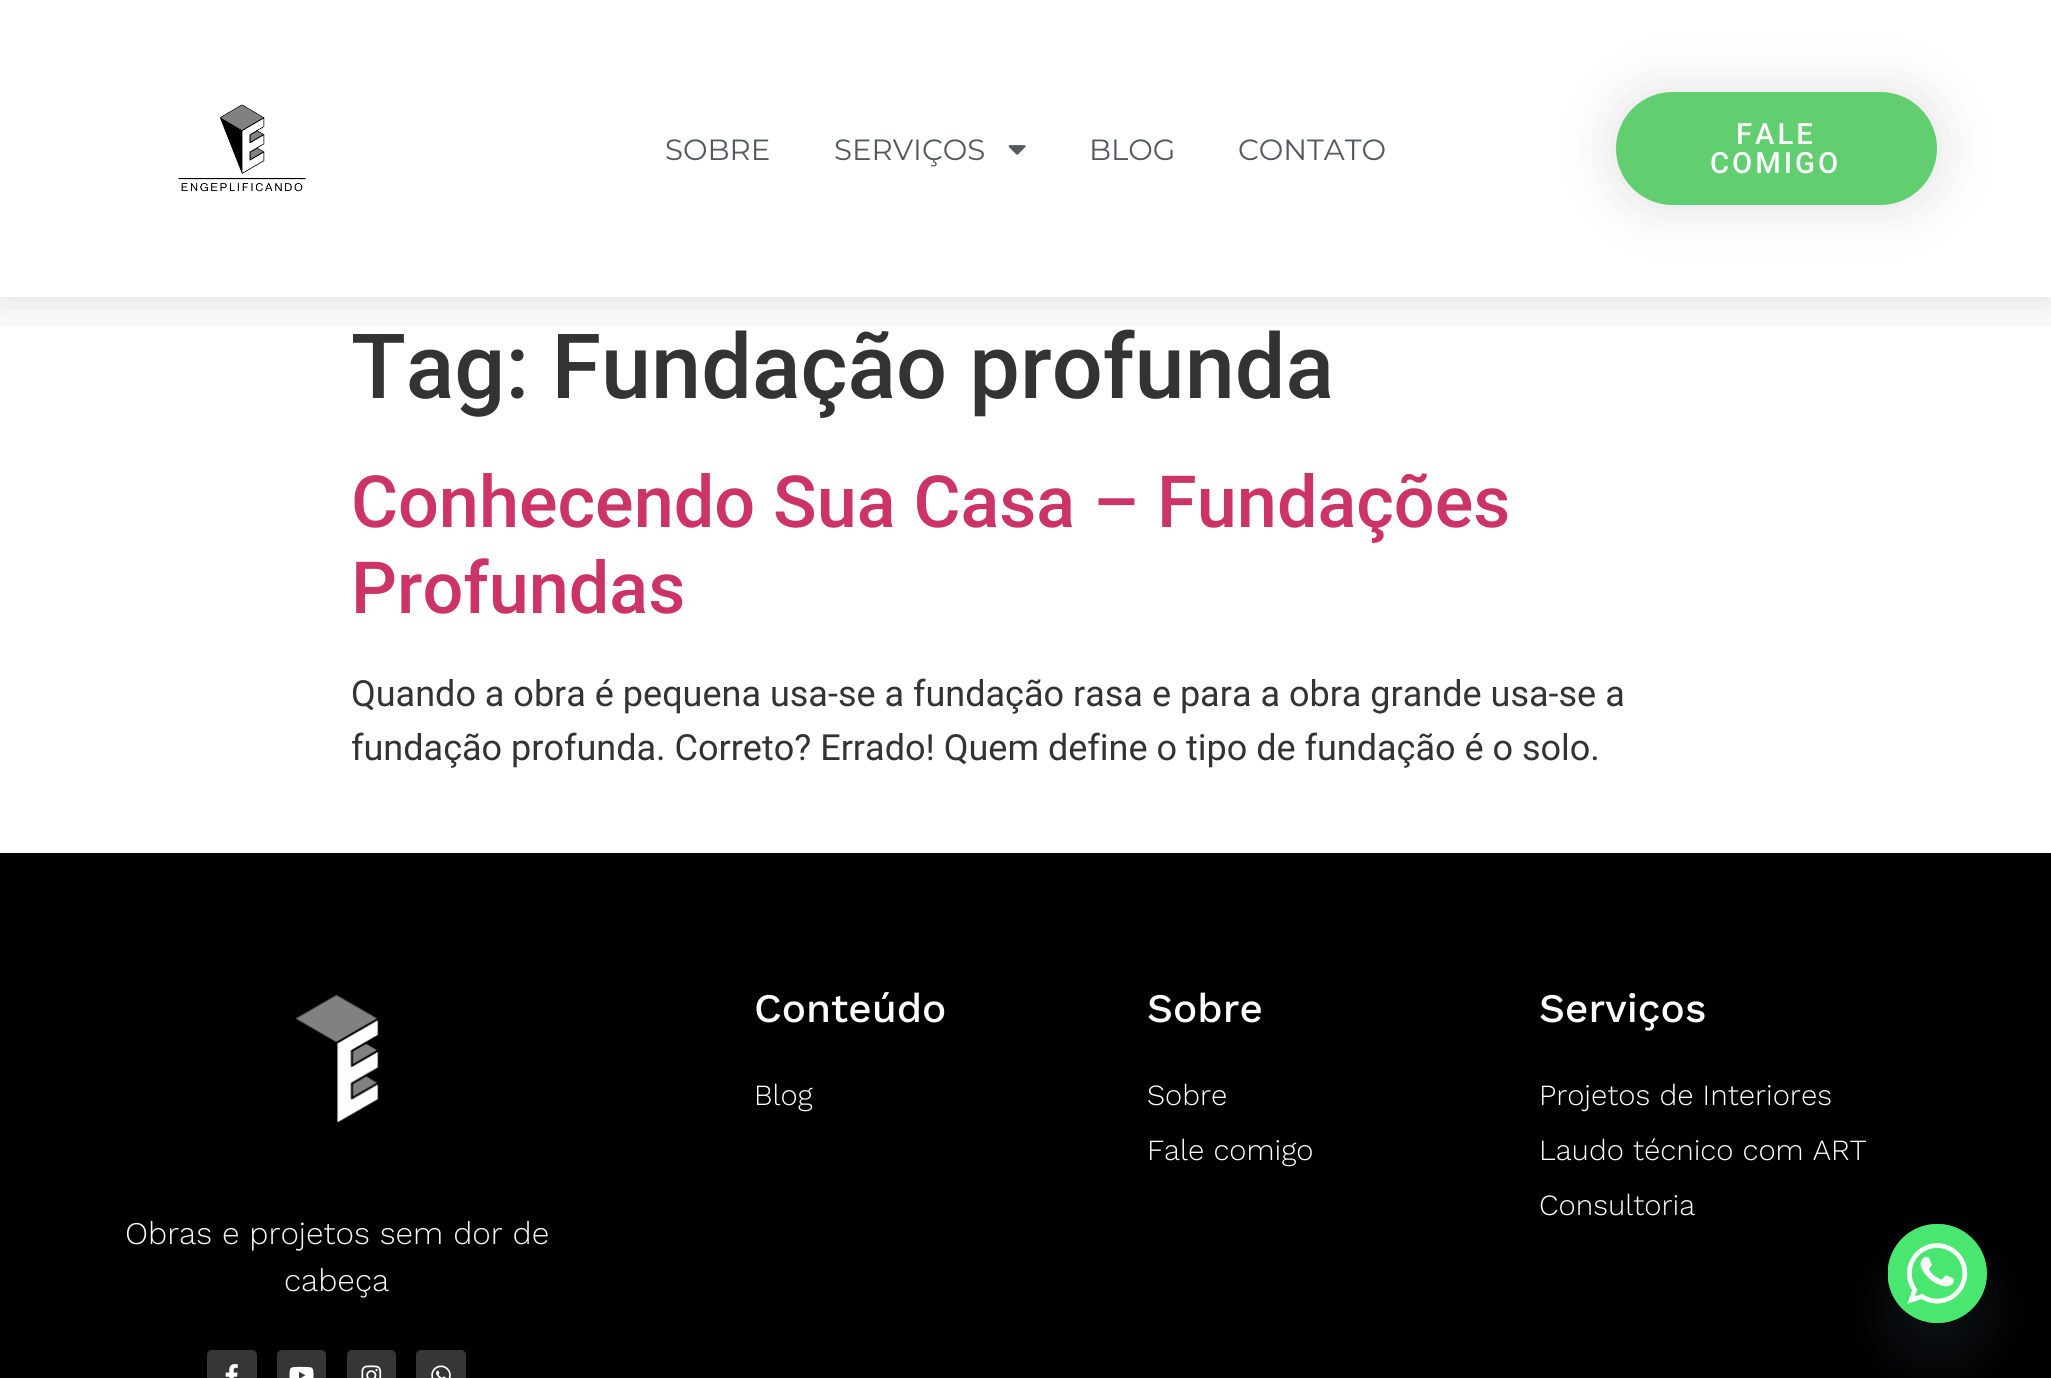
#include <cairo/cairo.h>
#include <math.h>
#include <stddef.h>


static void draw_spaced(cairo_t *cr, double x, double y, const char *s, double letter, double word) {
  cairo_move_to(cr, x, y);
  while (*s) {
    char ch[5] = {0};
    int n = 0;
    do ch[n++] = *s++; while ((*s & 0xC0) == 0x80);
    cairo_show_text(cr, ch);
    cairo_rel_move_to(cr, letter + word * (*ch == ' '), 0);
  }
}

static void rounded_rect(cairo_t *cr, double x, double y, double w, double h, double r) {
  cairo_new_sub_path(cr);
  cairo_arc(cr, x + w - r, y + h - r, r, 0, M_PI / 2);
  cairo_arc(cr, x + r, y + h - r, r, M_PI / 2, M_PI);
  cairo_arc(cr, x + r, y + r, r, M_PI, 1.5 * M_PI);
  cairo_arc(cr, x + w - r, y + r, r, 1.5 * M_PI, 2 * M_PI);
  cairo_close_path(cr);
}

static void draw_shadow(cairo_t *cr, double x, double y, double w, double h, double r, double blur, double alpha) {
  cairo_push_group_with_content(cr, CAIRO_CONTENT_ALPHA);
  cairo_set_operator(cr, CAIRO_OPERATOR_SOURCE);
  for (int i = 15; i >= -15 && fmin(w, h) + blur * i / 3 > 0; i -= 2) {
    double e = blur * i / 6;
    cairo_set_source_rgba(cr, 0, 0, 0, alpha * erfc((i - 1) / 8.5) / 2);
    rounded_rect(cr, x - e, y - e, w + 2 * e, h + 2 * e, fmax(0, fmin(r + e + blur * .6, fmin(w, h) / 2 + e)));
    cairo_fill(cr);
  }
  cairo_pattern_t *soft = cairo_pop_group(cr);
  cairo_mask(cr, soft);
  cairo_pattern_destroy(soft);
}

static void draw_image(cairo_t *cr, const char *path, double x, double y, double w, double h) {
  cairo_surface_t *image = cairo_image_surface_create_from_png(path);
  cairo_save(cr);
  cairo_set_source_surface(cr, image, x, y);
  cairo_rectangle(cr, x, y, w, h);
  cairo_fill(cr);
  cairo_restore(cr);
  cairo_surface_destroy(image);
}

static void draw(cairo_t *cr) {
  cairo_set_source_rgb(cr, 1, 1, 1);
  cairo_paint(cr);
  cairo_save(cr);
  cairo_rectangle(cr, 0, 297, 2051, 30);
  cairo_clip(cr);
  cairo_set_source_rgb(cr, 0, 0, 0);
  draw_shadow(cr, 0, 0, 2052, 297, 0, 27, 0.15);
  cairo_restore(cr);
  draw_image(cr, "images/1.png", 178, 104, 128, 88);
  draw_image(cr, "images/2.png", 1008, 145, 18, 10);
  cairo_set_source_rgb(cr, 0, 0, 0);
  draw_shadow(cr, 1616, 92, 321, 113, 56.5, 30.5, 0.12);
  cairo_set_source_rgb(cr, 97 / 255.0, 206 / 255.0, 112 / 255.0);
  rounded_rect(cr, 1616, 92, 321, 113, 56.5);
  cairo_fill(cr);
  cairo_set_source_rgb(cr, 0, 0, 0);
  cairo_rectangle(cr, 0, 853, 2051, 525);
  cairo_fill(cr);
  draw_image(cr, "images/3.png", 295, 994, 84, 129);
  cairo_set_source_rgb(cr, 54 / 255.0, 54 / 255.0, 54 / 255.0);
  rounded_rect(cr, 207, 1350, 50, 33, 5);
  cairo_fill(cr);
  draw_image(cr, "images/4.png", 225, 1364, 13, 14);
  rounded_rect(cr, 277, 1350, 49, 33, 5);
  cairo_fill(cr);
  draw_image(cr, "images/5.png", 289, 1366, 25, 12);
  rounded_rect(cr, 347, 1350, 49, 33, 5);
  cairo_fill(cr);
  draw_image(cr, "images/6.png", 361, 1365, 21, 13);
  rounded_rect(cr, 416, 1350, 50, 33, 5);
  cairo_fill(cr);
  draw_image(cr, "images/7.png", 431, 1365, 20, 13);
  cairo_set_source_rgb(cr, 73 / 255.0, 104 / 255.0, 126 / 255.0);
  draw_shadow(cr, 1888, 1260, 99, 99, 49.5, 27, 0.16);
  cairo_set_source_rgb(cr, 73 / 255.0, 230 / 255.0, 112 / 255.0);
  cairo_arc(cr, 1937.5, 1273.5, 49.5, 0, 2 * M_PI);
  cairo_fill(cr);
  draw_image(cr, "images/8.png", 1888, 1224, 99, 99);
  cairo_select_font_face(cr, "Montserrat", CAIRO_FONT_SLANT_NORMAL, CAIRO_FONT_WEIGHT_NORMAL);
  cairo_set_font_size(cr, 29.25);
  cairo_set_source_rgb(cr, 84 / 255.0, 89 / 255.0, 95 / 255.0);
  cairo_move_to(cr, 665, 160);
  cairo_show_text(cr, "SOBRE");
  cairo_move_to(cr, 834, 160);
  cairo_show_text(cr, "SERVIÇOS");
  cairo_move_to(cr, 1089, 160);
  cairo_show_text(cr, "BLOG");
  cairo_move_to(cr, 1238, 160);
  cairo_show_text(cr, "CONTATO");
  cairo_select_font_face(cr, "Roboto Medium", CAIRO_FONT_SLANT_NORMAL, CAIRO_FONT_WEIGHT_NORMAL);
  cairo_set_source_rgb(cr, 1, 1, 1);
  draw_spaced(cr, 1736, 144, "FALE", 3, 0);
  draw_spaced(cr, 1710, 173, "COMIGO", 3, 0);
  cairo_set_font_size(cr, 90);
  cairo_set_source_rgb(cr, 51 / 255.0, 51 / 255.0, 51 / 255.0);
  cairo_move_to(cr, 351, 398);
  cairo_show_text(cr, "Tag: Fundação profunda");
  cairo_set_font_size(cr, 72);
  cairo_set_source_rgb(cr, 204 / 255.0, 51 / 255.0, 102 / 255.0);
  cairo_move_to(cr, 351, 527);
  cairo_show_text(cr, "Conhecendo Sua Casa – Fundações");
  cairo_move_to(cr, 351, 613);
  cairo_show_text(cr, "Profundas");
  cairo_select_font_face(cr, "Roboto", CAIRO_FONT_SLANT_NORMAL, CAIRO_FONT_WEIGHT_NORMAL);
  cairo_set_font_size(cr, 36);
  cairo_set_source_rgb(cr, 51 / 255.0, 51 / 255.0, 51 / 255.0);
  cairo_move_to(cr, 351, 706);
  cairo_show_text(cr, "Quando a obra é pequena usa-se a fundação rasa e para a obra grande usa-se a");
  cairo_move_to(cr, 351, 760);
  cairo_show_text(cr, "fundação profunda. Correto? Errado! Quem define o tipo de fundação é o solo.");
  cairo_select_font_face(cr, "Work Sans Medium", CAIRO_FONT_SLANT_NORMAL, CAIRO_FONT_WEIGHT_NORMAL);
  cairo_set_font_size(cr, 40.5);
  cairo_set_source_rgb(cr, 1, 1, 1);
  cairo_move_to(cr, 754, 1022);
  cairo_show_text(cr, "Conteúdo");
  cairo_select_font_face(cr, "Work Sans Light", CAIRO_FONT_SLANT_NORMAL, CAIRO_FONT_WEIGHT_NORMAL);
  cairo_set_font_size(cr, 29.25);
  cairo_move_to(cr, 754, 1105);
  cairo_show_text(cr, "Blog");
  cairo_select_font_face(cr, "Work Sans Medium", CAIRO_FONT_SLANT_NORMAL, CAIRO_FONT_WEIGHT_NORMAL);
  cairo_set_font_size(cr, 40.5);
  cairo_move_to(cr, 1147, 1022);
  cairo_show_text(cr, "Sobre");
  cairo_select_font_face(cr, "Work Sans Light", CAIRO_FONT_SLANT_NORMAL, CAIRO_FONT_WEIGHT_NORMAL);
  cairo_set_font_size(cr, 29.25);
  cairo_move_to(cr, 1147, 1105);
  cairo_show_text(cr, "Sobre");
  cairo_move_to(cr, 1147, 1160);
  cairo_show_text(cr, "Fale comigo");
  cairo_select_font_face(cr, "Work Sans Medium", CAIRO_FONT_SLANT_NORMAL, CAIRO_FONT_WEIGHT_NORMAL);
  cairo_set_font_size(cr, 40.5);
  cairo_move_to(cr, 1539, 1022);
  cairo_show_text(cr, "Serviços");
  cairo_select_font_face(cr, "Work Sans Light", CAIRO_FONT_SLANT_NORMAL, CAIRO_FONT_WEIGHT_NORMAL);
  cairo_set_font_size(cr, 29.25);
  cairo_move_to(cr, 1539, 1105);
  cairo_show_text(cr, "Projetos de Interiores");
  cairo_move_to(cr, 1539, 1160);
  cairo_show_text(cr, "Laudo técnico com ART");
  cairo_move_to(cr, 1539, 1215);
  cairo_show_text(cr, "Consultoria");
  cairo_set_font_size(cr, 31.5);
  cairo_set_source_rgb(cr, 247 / 255.0, 247 / 255.0, 247 / 255.0);
  cairo_move_to(cr, 125, 1244);
  cairo_show_text(cr, "Obras e projetos sem dor de");
  cairo_move_to(cr, 284, 1291);
  cairo_show_text(cr, "cabeça");
}

int main(void) {
  cairo_surface_t *surface = cairo_image_surface_create(CAIRO_FORMAT_RGB24, 2051, 1378);
  cairo_t *cr = cairo_create(surface);
  cairo_font_options_t *options = cairo_font_options_create();
  cairo_font_options_set_hint_metrics(options, CAIRO_HINT_METRICS_OFF);
  cairo_font_options_set_hint_style(options, CAIRO_HINT_STYLE_NONE);
  cairo_set_font_options(cr, options);
  cairo_set_miter_limit(cr, 4);
  draw(cr);
  cairo_surface_write_to_png(surface, "out.png");
  cairo_font_options_destroy(options);
  cairo_destroy(cr);
  cairo_surface_destroy(surface);
  return 0;
}
